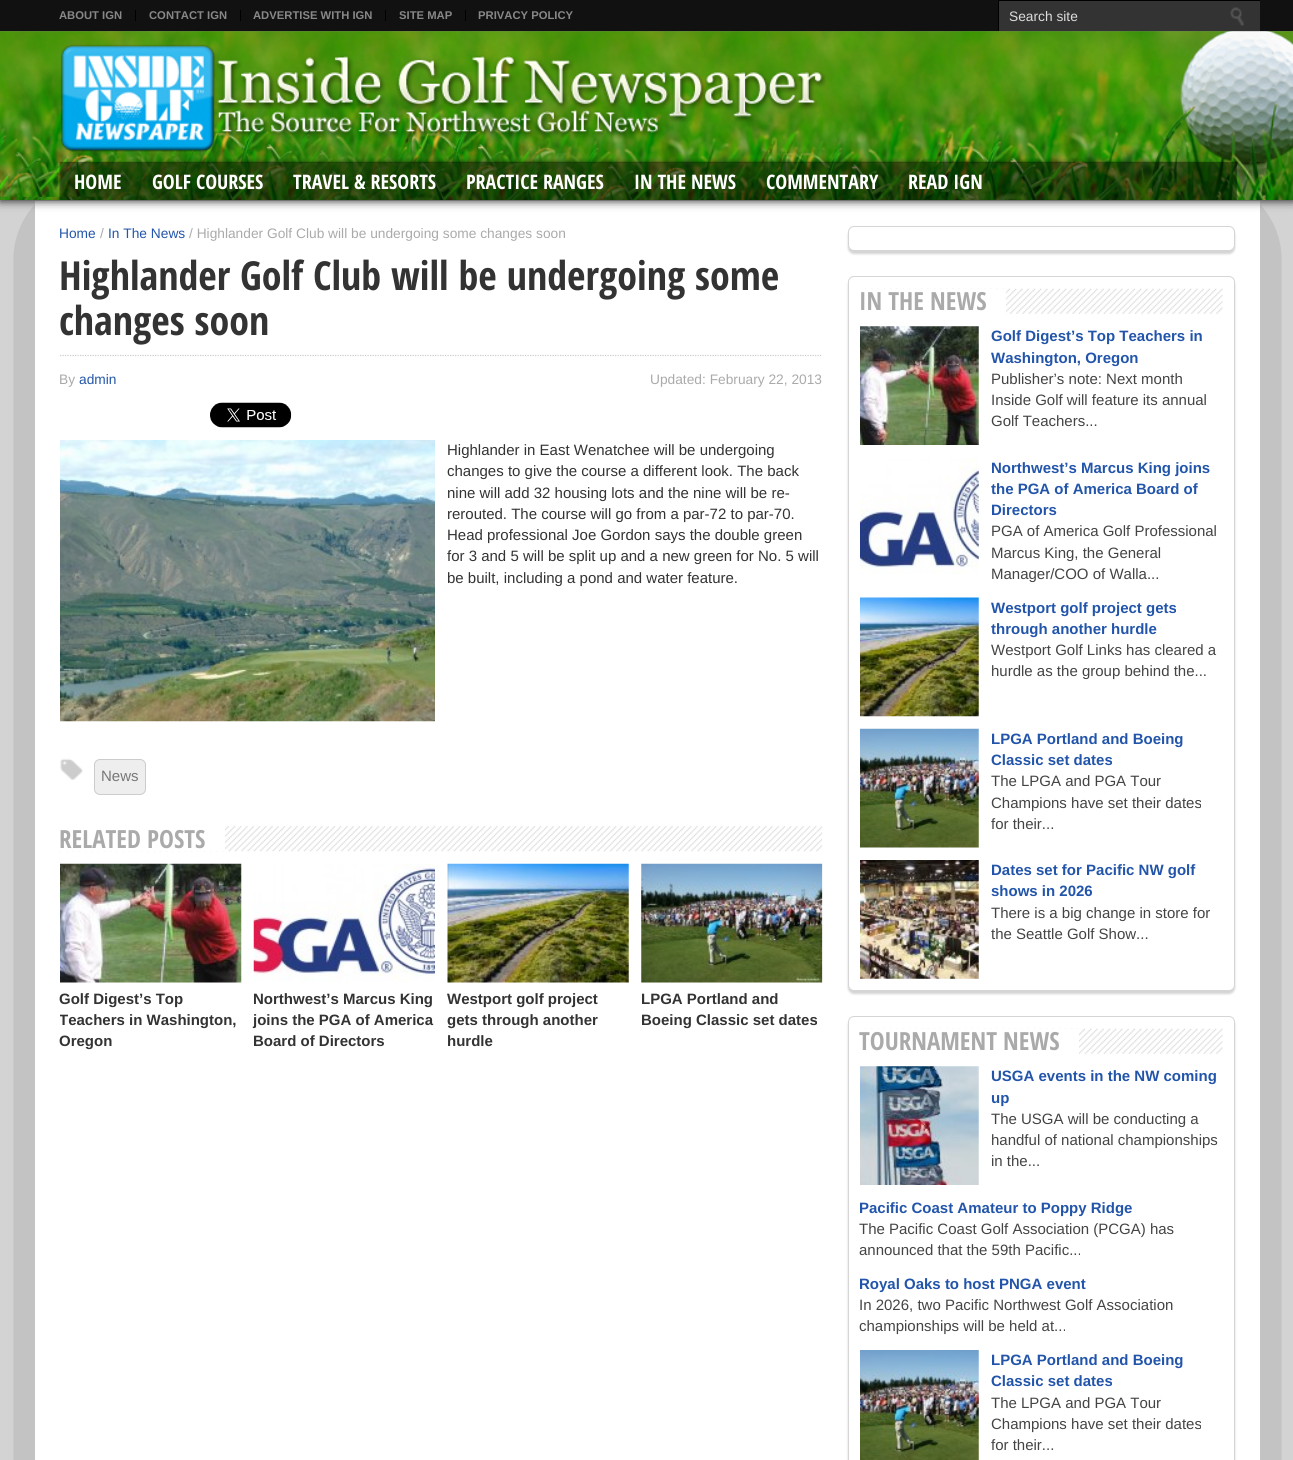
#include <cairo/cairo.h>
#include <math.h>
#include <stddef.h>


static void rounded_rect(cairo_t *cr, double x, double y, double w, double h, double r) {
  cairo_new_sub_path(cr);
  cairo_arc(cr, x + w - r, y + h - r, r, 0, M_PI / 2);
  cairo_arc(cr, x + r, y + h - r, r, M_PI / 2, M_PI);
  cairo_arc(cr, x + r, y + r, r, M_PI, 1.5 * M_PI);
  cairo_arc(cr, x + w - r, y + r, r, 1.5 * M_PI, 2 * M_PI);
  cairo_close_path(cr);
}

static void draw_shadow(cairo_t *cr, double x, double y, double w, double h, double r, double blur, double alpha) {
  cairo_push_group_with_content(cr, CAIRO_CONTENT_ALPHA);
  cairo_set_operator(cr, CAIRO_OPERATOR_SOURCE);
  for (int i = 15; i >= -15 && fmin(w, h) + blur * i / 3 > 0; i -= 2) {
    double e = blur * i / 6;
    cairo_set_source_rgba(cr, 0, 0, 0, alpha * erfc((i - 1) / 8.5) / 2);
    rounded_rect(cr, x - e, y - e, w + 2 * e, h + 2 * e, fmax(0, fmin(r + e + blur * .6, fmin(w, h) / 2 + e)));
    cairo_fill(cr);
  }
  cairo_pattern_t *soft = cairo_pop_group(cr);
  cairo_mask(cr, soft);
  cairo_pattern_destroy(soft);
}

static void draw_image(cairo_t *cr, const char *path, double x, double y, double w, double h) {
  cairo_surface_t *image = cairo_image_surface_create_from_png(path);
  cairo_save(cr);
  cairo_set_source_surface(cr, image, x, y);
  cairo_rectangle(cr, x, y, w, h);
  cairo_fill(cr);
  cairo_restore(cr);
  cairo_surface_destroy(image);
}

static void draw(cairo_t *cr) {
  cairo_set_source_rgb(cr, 1, 1, 1);
  cairo_paint(cr);
  cairo_save(cr);
  cairo_set_fill_rule(cr, CAIRO_FILL_RULE_EVEN_ODD);
  cairo_new_path(cr);
  cairo_move_to(cr, 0, 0);
  cairo_line_to(cr, 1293, 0);
  cairo_line_to(cr, 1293, 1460);
  cairo_line_to(cr, 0, 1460);
  cairo_close_path(cr);
  cairo_move_to(cr, 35, 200);
  cairo_line_to(cr, 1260, 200);
  cairo_line_to(cr, 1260, 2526);
  cairo_line_to(cr, 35, 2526);
  cairo_close_path(cr);
  cairo_clip(cr);
  cairo_set_source_rgb(cr, 136 / 255.0, 136 / 255.0, 136 / 255.0);
  draw_shadow(cr, 31, 196, 1233, 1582, 0, 106, 1);
  cairo_restore(cr);
  cairo_set_source_rgb(cr, 221 / 255.0, 221 / 255.0, 221 / 255.0);
  cairo_rectangle(cr, 35, 200, 1225, 1);
  cairo_fill(cr);
  cairo_set_source_rgb(cr, 0, 0, 0);
  draw_shadow(cr, 0, 31, 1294, 169, 0, 5, 1);
  cairo_set_source_rgb(cr, 17 / 255.0, 17 / 255.0, 17 / 255.0);
  cairo_rectangle(cr, 0, 0, 1293, 31);
  cairo_fill(cr);
  cairo_set_source_rgb(cr, 0, 0, 0);
  cairo_rectangle(cr, 135, 10, 1, 11);
  cairo_fill(cr);
  cairo_rectangle(cr, 240, 10, 1, 11);
  cairo_fill(cr);
  cairo_rectangle(cr, 385, 10, 1, 11);
  cairo_fill(cr);
  cairo_rectangle(cr, 465, 10, 1, 11);
  cairo_fill(cr);
  cairo_set_source_rgb(cr, 51 / 255.0, 51 / 255.0, 51 / 255.0);
  cairo_rectangle(cr, 999, 1, 261, 30);
  cairo_fill(cr);
  draw_image(cr, "images/1.png", 1230, 7, 14, 19);
  cairo_save(cr);
  cairo_rectangle(cr, 998, 0, 262, 31);
  cairo_clip(cr);
  cairo_set_source_rgb(cr, 0, 0, 0);
  cairo_set_fill_rule(cr, CAIRO_FILL_RULE_EVEN_ODD);
  cairo_new_path(cr);
  cairo_move_to(cr, 874, -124);
  cairo_line_to(cr, 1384, -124);
  cairo_line_to(cr, 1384, 155);
  cairo_line_to(cr, 874, 155);
  cairo_close_path(cr);
  cairo_move_to(cr, 999, 1);
  cairo_line_to(cr, 1261, 1);
  cairo_line_to(cr, 1261, 32);
  cairo_line_to(cr, 999, 32);
  cairo_close_path(cr);
  cairo_fill(cr);
  cairo_restore(cr);
  draw_image(cr, "images/2.png", 0, 31, 1293, 169);
  draw_image(cr, "images/3.png", 60, 44, 766, 108);
  draw_image(cr, "images/4.png", 101, 158, 1094, 5);
  cairo_new_path(cr);
  cairo_move_to(cr, 60, 355.5);
  cairo_line_to(cr, 822.5, 355.5);
  cairo_set_source_rgb(cr, 204 / 255.0, 204 / 255.0, 204 / 255.0);
  cairo_set_line_width(cr, 1.2);
  cairo_set_dash(cr, (double[]){1.25, 1.25}, 2, 0);
  cairo_stroke(cr);
  draw_image(cr, "images/5.png", 210, 402, 82, 26);
  draw_image(cr, "images/6.png", 60, 440, 375, 282);
  draw_image(cr, "images/7.png", 60, 758, 23, 22);
  cairo_set_source_rgb(cr, 238 / 255.0, 238 / 255.0, 238 / 255.0);
  rounded_rect(cr, 94.5, 759.5, 51, 35, 5.5);
  cairo_fill_preserve(cr);
  cairo_set_source_rgb(cr, 204 / 255.0, 204 / 255.0, 204 / 255.0);
  cairo_set_line_width(cr, 1);
  cairo_set_dash(cr, NULL, 0, 0);
  cairo_stroke(cr);
  draw_image(cr, "images/8.png", 60, 826, 763, 26);
  cairo_set_source_rgb(cr, 1, 1, 1);
  cairo_rectangle(cr, 60, 826, 165, 25);
  cairo_fill(cr);
  draw_image(cr, "images/9.png", 60, 863, 182, 120);
  draw_image(cr, "images/10.png", 253, 864, 182, 118);
  draw_image(cr, "images/11.png", 447, 863, 182, 120);
  draw_image(cr, "images/12.png", 641, 863, 182, 120);
  cairo_set_source_rgb(cr, 213 / 255.0, 213 / 255.0, 213 / 255.0);
  draw_shadow(cr, 848, 229, 387, 25, 6, 1, 1);
  cairo_set_source_rgb(cr, 1, 1, 1);
  rounded_rect(cr, 848.5, 226.5, 386, 24, 5.5);
  cairo_fill_preserve(cr);
  cairo_set_source_rgb(cr, 213 / 255.0, 213 / 255.0, 213 / 255.0);
  cairo_stroke(cr);
  cairo_set_source_rgb(cr, 213 / 255.0, 213 / 255.0, 213 / 255.0);
  draw_shadow(cr, 848, 279, 387, 715, 6, 1, 1);
  cairo_set_source_rgb(cr, 1, 1, 1);
  rounded_rect(cr, 848.5, 276.5, 386, 714, 5.5);
  cairo_fill_preserve(cr);
  cairo_set_source_rgb(cr, 213 / 255.0, 213 / 255.0, 213 / 255.0);
  cairo_stroke(cr);
  draw_image(cr, "images/13.png", 860, 288, 363, 26);
  cairo_set_source_rgb(cr, 1, 1, 1);
  cairo_rectangle(cr, 860, 289, 146, 25);
  cairo_fill(cr);
  draw_image(cr, "images/14.png", 860, 326, 119, 119);
  draw_image(cr, "images/15.png", 860, 458, 119, 116);
  draw_image(cr, "images/16.png", 860, 597, 119, 120);
  draw_image(cr, "images/17.png", 860, 728, 119, 120);
  draw_image(cr, "images/18.png", 860, 860, 119, 119);
  cairo_save(cr);
  cairo_set_fill_rule(cr, CAIRO_FILL_RULE_EVEN_ODD);
  cairo_new_path(cr);
  cairo_move_to(cr, 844, 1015);
  cairo_line_to(cr, 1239, 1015);
  cairo_line_to(cr, 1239, 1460);
  cairo_line_to(cr, 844, 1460);
  cairo_close_path(cr);
  cairo_move_to(cr, 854, 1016);
  cairo_line_to(cr, 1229, 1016);
  cairo_curve_to(cr, 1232.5, 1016, 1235, 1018.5, 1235, 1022);
  cairo_line_to(cr, 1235, 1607);
  cairo_curve_to(cr, 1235, 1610.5, 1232.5, 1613, 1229, 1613);
  cairo_line_to(cr, 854, 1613);
  cairo_curve_to(cr, 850.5, 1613, 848, 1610.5, 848, 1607);
  cairo_line_to(cr, 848, 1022);
  cairo_curve_to(cr, 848, 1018.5, 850.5, 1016, 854, 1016);
  cairo_close_path(cr);
  cairo_clip(cr);
  cairo_set_source_rgb(cr, 213 / 255.0, 213 / 255.0, 213 / 255.0);
  draw_shadow(cr, 848, 1019, 387, 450, 6, 1, 1);
  cairo_restore(cr);
  rounded_rect(cr, 848.5, 1016.5, 386, 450, 5.5);
  cairo_set_source_rgb(cr, 213 / 255.0, 213 / 255.0, 213 / 255.0);
  cairo_stroke(cr);
  draw_image(cr, "images/19.png", 860, 1028, 363, 26);
  cairo_set_source_rgb(cr, 1, 1, 1);
  cairo_rectangle(cr, 860, 1029, 219, 25);
  cairo_fill(cr);
  draw_image(cr, "images/20.png", 860, 1066, 119, 119);
  draw_image(cr, "images/21.png", 860, 1350, 119, 110);
  cairo_select_font_face(cr, "Liberation Sans", CAIRO_FONT_SLANT_NORMAL, CAIRO_FONT_WEIGHT_BOLD);
  cairo_set_font_size(cr, 11.25);
  cairo_set_source_rgb(cr, 136 / 255.0, 136 / 255.0, 136 / 255.0);
  cairo_move_to(cr, 59, 19);
  cairo_show_text(cr, "ABOUT IGN");
  cairo_move_to(cr, 149, 19);
  cairo_show_text(cr, "CONTACT IGN");
  cairo_move_to(cr, 253, 19);
  cairo_show_text(cr, "ADVERTISE WITH IGN");
  cairo_move_to(cr, 399, 19);
  cairo_show_text(cr, "SITE MAP");
  cairo_move_to(cr, 478, 19);
  cairo_show_text(cr, "PRIVACY POLICY");
  cairo_select_font_face(cr, "Liberation Sans", CAIRO_FONT_SLANT_NORMAL, CAIRO_FONT_WEIGHT_NORMAL);
  cairo_set_font_size(cr, 13.75);
  cairo_set_source_rgb(cr, 221 / 255.0, 221 / 255.0, 221 / 255.0);
  cairo_move_to(cr, 1009, 21);
  cairo_show_text(cr, "Search site");
  cairo_select_font_face(cr, "Open Sans Condensed", CAIRO_FONT_SLANT_NORMAL, CAIRO_FONT_WEIGHT_BOLD);
  cairo_set_font_size(cr, 20);
  cairo_set_source_rgb(cr, 1, 1, 1);
  cairo_move_to(cr, 74, 189);
  cairo_show_text(cr, "HOME");
  cairo_move_to(cr, 152, 189);
  cairo_show_text(cr, "GOLF COURSES");
  cairo_move_to(cr, 293, 189);
  cairo_show_text(cr, "TRAVEL & RESORTS");
  cairo_move_to(cr, 466, 189);
  cairo_show_text(cr, "PRACTICE RANGES");
  cairo_move_to(cr, 634, 189);
  cairo_show_text(cr, "IN THE NEWS");
  cairo_move_to(cr, 766, 189);
  cairo_show_text(cr, "COMMENTARY");
  cairo_move_to(cr, 908, 189);
  cairo_show_text(cr, "READ IGN");
  cairo_select_font_face(cr, "Liberation Sans", CAIRO_FONT_SLANT_NORMAL, CAIRO_FONT_WEIGHT_NORMAL);
  cairo_set_font_size(cr, 13.75);
  cairo_set_source_rgb(cr, 34 / 255.0, 85 / 255.0, 170 / 255.0);
  cairo_move_to(cr, 59, 238);
  cairo_show_text(cr, "Home");
  cairo_set_source_rgb(cr, 170 / 255.0, 170 / 255.0, 170 / 255.0);
  cairo_move_to(cr, 100, 238);
  cairo_show_text(cr, "/");
  cairo_set_source_rgb(cr, 34 / 255.0, 85 / 255.0, 170 / 255.0);
  cairo_move_to(cr, 108, 238);
  cairo_show_text(cr, "In The News");
  cairo_set_source_rgb(cr, 170 / 255.0, 170 / 255.0, 170 / 255.0);
  cairo_move_to(cr, 189, 238);
  cairo_show_text(cr, "/ Highlander Golf Club will be undergoing some changes soon");
  cairo_select_font_face(cr, "Open Sans Condensed", CAIRO_FONT_SLANT_NORMAL, CAIRO_FONT_WEIGHT_BOLD);
  cairo_set_font_size(cr, 40);
  cairo_set_source_rgb(cr, 51 / 255.0, 51 / 255.0, 51 / 255.0);
  cairo_move_to(cr, 59, 290);
  cairo_show_text(cr, "Highlander Golf Club will be undergoing some");
  cairo_move_to(cr, 59, 335);
  cairo_show_text(cr, "changes soon");
  cairo_select_font_face(cr, "Liberation Sans", CAIRO_FONT_SLANT_NORMAL, CAIRO_FONT_WEIGHT_NORMAL);
  cairo_set_font_size(cr, 13.75);
  cairo_set_source_rgb(cr, 170 / 255.0, 170 / 255.0, 170 / 255.0);
  cairo_move_to(cr, 59, 384);
  cairo_show_text(cr, "By");
  cairo_set_source_rgb(cr, 34 / 255.0, 85 / 255.0, 170 / 255.0);
  cairo_move_to(cr, 79, 384);
  cairo_show_text(cr, "admin");
  cairo_set_source_rgb(cr, 170 / 255.0, 170 / 255.0, 170 / 255.0);
  cairo_move_to(cr, 650, 384);
  cairo_show_text(cr, "Updated: February 22, 2013");
  cairo_set_font_size(cr, 15);
  cairo_set_source_rgb(cr, 51 / 255.0, 51 / 255.0, 51 / 255.0);
  cairo_move_to(cr, 447, 455);
  cairo_show_text(cr, "Highlander in East Wenatchee will be undergoing");
  cairo_move_to(cr, 447, 476);
  cairo_show_text(cr, "changes to give the course a different look. The back");
  cairo_move_to(cr, 447, 498);
  cairo_show_text(cr, "nine will add 32 housing lots and the nine will be re-");
  cairo_move_to(cr, 447, 519);
  cairo_show_text(cr, "rerouted. The course will go from a par-72 to par-70.");
  cairo_move_to(cr, 447, 540);
  cairo_show_text(cr, "Head professional Joe Gordon says the double green");
  cairo_move_to(cr, 447, 561);
  cairo_show_text(cr, "for 3 and 5 will be split up and a new green for No. 5 will");
  cairo_move_to(cr, 447, 583);
  cairo_show_text(cr, "be built, including a pond and water feature.");
  cairo_set_source_rgb(cr, 119 / 255.0, 119 / 255.0, 119 / 255.0);
  cairo_move_to(cr, 101, 781);
  cairo_show_text(cr, "News");
  cairo_select_font_face(cr, "Open Sans Condensed", CAIRO_FONT_SLANT_NORMAL, CAIRO_FONT_WEIGHT_BOLD);
  cairo_set_font_size(cr, 25);
  cairo_set_source_rgb(cr, 170 / 255.0, 170 / 255.0, 170 / 255.0);
  cairo_move_to(cr, 59, 848);
  cairo_show_text(cr, "RELATED POSTS");
  cairo_select_font_face(cr, "Liberation Sans", CAIRO_FONT_SLANT_NORMAL, CAIRO_FONT_WEIGHT_BOLD);
  cairo_set_font_size(cr, 15);
  cairo_set_source_rgb(cr, 51 / 255.0, 51 / 255.0, 51 / 255.0);
  cairo_move_to(cr, 59, 1004);
  cairo_show_text(cr, "Golf Digest’s Top");
  cairo_save(cr);
  cairo_rectangle(cr, 60, 814, 763, 251);
  cairo_clip(cr);
  cairo_move_to(cr, 59, 1025);
  cairo_show_text(cr, "Teachers in Washington,");
  cairo_restore(cr);
  cairo_move_to(cr, 59, 1046);
  cairo_show_text(cr, "Oregon");
  cairo_move_to(cr, 253, 1004);
  cairo_show_text(cr, "Northwest’s Marcus King");
  cairo_move_to(cr, 253, 1025);
  cairo_show_text(cr, "joins the PGA of America");
  cairo_move_to(cr, 253, 1046);
  cairo_show_text(cr, "Board of Directors");
  cairo_move_to(cr, 447, 1004);
  cairo_show_text(cr, "Westport golf project");
  cairo_move_to(cr, 447, 1025);
  cairo_show_text(cr, "gets through another");
  cairo_move_to(cr, 447, 1046);
  cairo_show_text(cr, "hurdle");
  cairo_move_to(cr, 641, 1004);
  cairo_show_text(cr, "LPGA Portland and");
  cairo_move_to(cr, 641, 1025);
  cairo_show_text(cr, "Boeing Classic set dates");
  cairo_select_font_face(cr, "Open Sans Condensed", CAIRO_FONT_SLANT_NORMAL, CAIRO_FONT_WEIGHT_BOLD);
  cairo_set_font_size(cr, 25);
  cairo_set_source_rgb(cr, 170 / 255.0, 170 / 255.0, 170 / 255.0);
  cairo_move_to(cr, 859, 310);
  cairo_show_text(cr, "IN THE NEWS");
  cairo_select_font_face(cr, "Liberation Sans", CAIRO_FONT_SLANT_NORMAL, CAIRO_FONT_WEIGHT_BOLD);
  cairo_set_font_size(cr, 15);
  cairo_set_source_rgb(cr, 34 / 255.0, 85 / 255.0, 170 / 255.0);
  cairo_move_to(cr, 991, 341);
  cairo_show_text(cr, "Golf Digest’s Top Teachers in");
  cairo_move_to(cr, 991, 363);
  cairo_show_text(cr, "Washington, Oregon");
  cairo_select_font_face(cr, "Liberation Sans", CAIRO_FONT_SLANT_NORMAL, CAIRO_FONT_WEIGHT_NORMAL);
  cairo_set_source_rgb(cr, 68 / 255.0, 68 / 255.0, 68 / 255.0);
  cairo_move_to(cr, 991, 384);
  cairo_show_text(cr, "Publisher’s note: Next month");
  cairo_move_to(cr, 991, 405);
  cairo_show_text(cr, "Inside Golf will feature its annual");
  cairo_move_to(cr, 991, 426);
  cairo_show_text(cr, "Golf Teachers...");
  cairo_select_font_face(cr, "Liberation Sans", CAIRO_FONT_SLANT_NORMAL, CAIRO_FONT_WEIGHT_BOLD);
  cairo_set_source_rgb(cr, 34 / 255.0, 85 / 255.0, 170 / 255.0);
  cairo_move_to(cr, 991, 473);
  cairo_show_text(cr, "Northwest’s Marcus King joins");
  cairo_move_to(cr, 991, 494);
  cairo_show_text(cr, "the PGA of America Board of");
  cairo_move_to(cr, 991, 515);
  cairo_show_text(cr, "Directors");
  cairo_select_font_face(cr, "Liberation Sans", CAIRO_FONT_SLANT_NORMAL, CAIRO_FONT_WEIGHT_NORMAL);
  cairo_set_source_rgb(cr, 68 / 255.0, 68 / 255.0, 68 / 255.0);
  cairo_move_to(cr, 991, 536);
  cairo_show_text(cr, "PGA of America Golf Professional");
  cairo_move_to(cr, 991, 558);
  cairo_show_text(cr, "Marcus King, the General");
  cairo_move_to(cr, 991, 579);
  cairo_show_text(cr, "Manager/COO of Walla...");
  cairo_select_font_face(cr, "Liberation Sans", CAIRO_FONT_SLANT_NORMAL, CAIRO_FONT_WEIGHT_BOLD);
  cairo_set_source_rgb(cr, 34 / 255.0, 85 / 255.0, 170 / 255.0);
  cairo_move_to(cr, 991, 613);
  cairo_show_text(cr, "Westport golf project gets");
  cairo_move_to(cr, 991, 634);
  cairo_show_text(cr, "through another hurdle");
  cairo_select_font_face(cr, "Liberation Sans", CAIRO_FONT_SLANT_NORMAL, CAIRO_FONT_WEIGHT_NORMAL);
  cairo_set_source_rgb(cr, 68 / 255.0, 68 / 255.0, 68 / 255.0);
  cairo_move_to(cr, 991, 655);
  cairo_show_text(cr, "Westport Golf Links has cleared a");
  cairo_move_to(cr, 991, 676);
  cairo_show_text(cr, "hurdle as the group behind the...");
  cairo_select_font_face(cr, "Liberation Sans", CAIRO_FONT_SLANT_NORMAL, CAIRO_FONT_WEIGHT_BOLD);
  cairo_set_source_rgb(cr, 34 / 255.0, 85 / 255.0, 170 / 255.0);
  cairo_move_to(cr, 991, 744);
  cairo_show_text(cr, "LPGA Portland and Boeing");
  cairo_move_to(cr, 991, 765);
  cairo_show_text(cr, "Classic set dates");
  cairo_select_font_face(cr, "Liberation Sans", CAIRO_FONT_SLANT_NORMAL, CAIRO_FONT_WEIGHT_NORMAL);
  cairo_set_source_rgb(cr, 68 / 255.0, 68 / 255.0, 68 / 255.0);
  cairo_move_to(cr, 991, 786);
  cairo_show_text(cr, "The LPGA and PGA Tour");
  cairo_move_to(cr, 991, 808);
  cairo_show_text(cr, "Champions have set their dates");
  cairo_move_to(cr, 991, 829);
  cairo_show_text(cr, "for their...");
  cairo_select_font_face(cr, "Liberation Sans", CAIRO_FONT_SLANT_NORMAL, CAIRO_FONT_WEIGHT_BOLD);
  cairo_set_source_rgb(cr, 34 / 255.0, 85 / 255.0, 170 / 255.0);
  cairo_move_to(cr, 991, 875);
  cairo_show_text(cr, "Dates set for Pacific NW golf");
  cairo_move_to(cr, 991, 896);
  cairo_show_text(cr, "shows in 2026");
  cairo_select_font_face(cr, "Liberation Sans", CAIRO_FONT_SLANT_NORMAL, CAIRO_FONT_WEIGHT_NORMAL);
  cairo_set_source_rgb(cr, 68 / 255.0, 68 / 255.0, 68 / 255.0);
  cairo_move_to(cr, 991, 918);
  cairo_show_text(cr, "There is a big change in store for");
  cairo_move_to(cr, 991, 939);
  cairo_show_text(cr, "the Seattle Golf Show...");
  cairo_select_font_face(cr, "Open Sans Condensed", CAIRO_FONT_SLANT_NORMAL, CAIRO_FONT_WEIGHT_BOLD);
  cairo_set_font_size(cr, 25);
  cairo_set_source_rgb(cr, 170 / 255.0, 170 / 255.0, 170 / 255.0);
  cairo_move_to(cr, 859, 1050);
  cairo_show_text(cr, "TOURNAMENT NEWS");
  cairo_select_font_face(cr, "Liberation Sans", CAIRO_FONT_SLANT_NORMAL, CAIRO_FONT_WEIGHT_BOLD);
  cairo_set_font_size(cr, 15);
  cairo_set_source_rgb(cr, 34 / 255.0, 85 / 255.0, 170 / 255.0);
  cairo_move_to(cr, 991, 1081);
  cairo_show_text(cr, "USGA events in the NW coming");
  cairo_move_to(cr, 991, 1103);
  cairo_show_text(cr, "up");
  cairo_select_font_face(cr, "Liberation Sans", CAIRO_FONT_SLANT_NORMAL, CAIRO_FONT_WEIGHT_NORMAL);
  cairo_set_source_rgb(cr, 68 / 255.0, 68 / 255.0, 68 / 255.0);
  cairo_move_to(cr, 991, 1124);
  cairo_show_text(cr, "The USGA will be conducting a");
  cairo_move_to(cr, 991, 1145);
  cairo_show_text(cr, "handful of national championships");
  cairo_move_to(cr, 991, 1166);
  cairo_show_text(cr, "in the...");
  cairo_select_font_face(cr, "Liberation Sans", CAIRO_FONT_SLANT_NORMAL, CAIRO_FONT_WEIGHT_BOLD);
  cairo_set_source_rgb(cr, 34 / 255.0, 85 / 255.0, 170 / 255.0);
  cairo_move_to(cr, 859, 1213);
  cairo_show_text(cr, "Pacific Coast Amateur to Poppy Ridge");
  cairo_select_font_face(cr, "Liberation Sans", CAIRO_FONT_SLANT_NORMAL, CAIRO_FONT_WEIGHT_NORMAL);
  cairo_set_source_rgb(cr, 68 / 255.0, 68 / 255.0, 68 / 255.0);
  cairo_move_to(cr, 859, 1234);
  cairo_show_text(cr, "The Pacific Coast Golf Association (PCGA) has");
  cairo_move_to(cr, 859, 1255);
  cairo_show_text(cr, "announced that the 59th Pacific...");
  cairo_select_font_face(cr, "Liberation Sans", CAIRO_FONT_SLANT_NORMAL, CAIRO_FONT_WEIGHT_BOLD);
  cairo_set_source_rgb(cr, 34 / 255.0, 85 / 255.0, 170 / 255.0);
  cairo_move_to(cr, 859, 1289);
  cairo_show_text(cr, "Royal Oaks to host PNGA event");
  cairo_select_font_face(cr, "Liberation Sans", CAIRO_FONT_SLANT_NORMAL, CAIRO_FONT_WEIGHT_NORMAL);
  cairo_set_source_rgb(cr, 68 / 255.0, 68 / 255.0, 68 / 255.0);
  cairo_move_to(cr, 859, 1310);
  cairo_show_text(cr, "In 2026, two Pacific Northwest Golf Association");
  cairo_move_to(cr, 859, 1331);
  cairo_show_text(cr, "championships will be held at...");
  cairo_select_font_face(cr, "Liberation Sans", CAIRO_FONT_SLANT_NORMAL, CAIRO_FONT_WEIGHT_BOLD);
  cairo_set_source_rgb(cr, 34 / 255.0, 85 / 255.0, 170 / 255.0);
  cairo_move_to(cr, 991, 1365);
  cairo_show_text(cr, "LPGA Portland and Boeing");
  cairo_move_to(cr, 991, 1386);
  cairo_show_text(cr, "Classic set dates");
  cairo_select_font_face(cr, "Liberation Sans", CAIRO_FONT_SLANT_NORMAL, CAIRO_FONT_WEIGHT_NORMAL);
  cairo_set_source_rgb(cr, 68 / 255.0, 68 / 255.0, 68 / 255.0);
  cairo_move_to(cr, 991, 1408);
  cairo_show_text(cr, "The LPGA and PGA Tour");
  cairo_move_to(cr, 991, 1429);
  cairo_show_text(cr, "Champions have set their dates");
  cairo_move_to(cr, 991, 1450);
  cairo_show_text(cr, "for their...");
}

int main(void) {
  cairo_surface_t *surface = cairo_image_surface_create(CAIRO_FORMAT_RGB24, 1293, 1460);
  cairo_t *cr = cairo_create(surface);
  cairo_font_options_t *options = cairo_font_options_create();
  cairo_font_options_set_hint_metrics(options, CAIRO_HINT_METRICS_OFF);
  cairo_font_options_set_hint_style(options, CAIRO_HINT_STYLE_NONE);
  cairo_set_font_options(cr, options);
  cairo_set_miter_limit(cr, 4);
  draw(cr);
  cairo_surface_write_to_png(surface, "out.png");
  cairo_font_options_destroy(options);
  cairo_destroy(cr);
  cairo_surface_destroy(surface);
  return 0;
}
